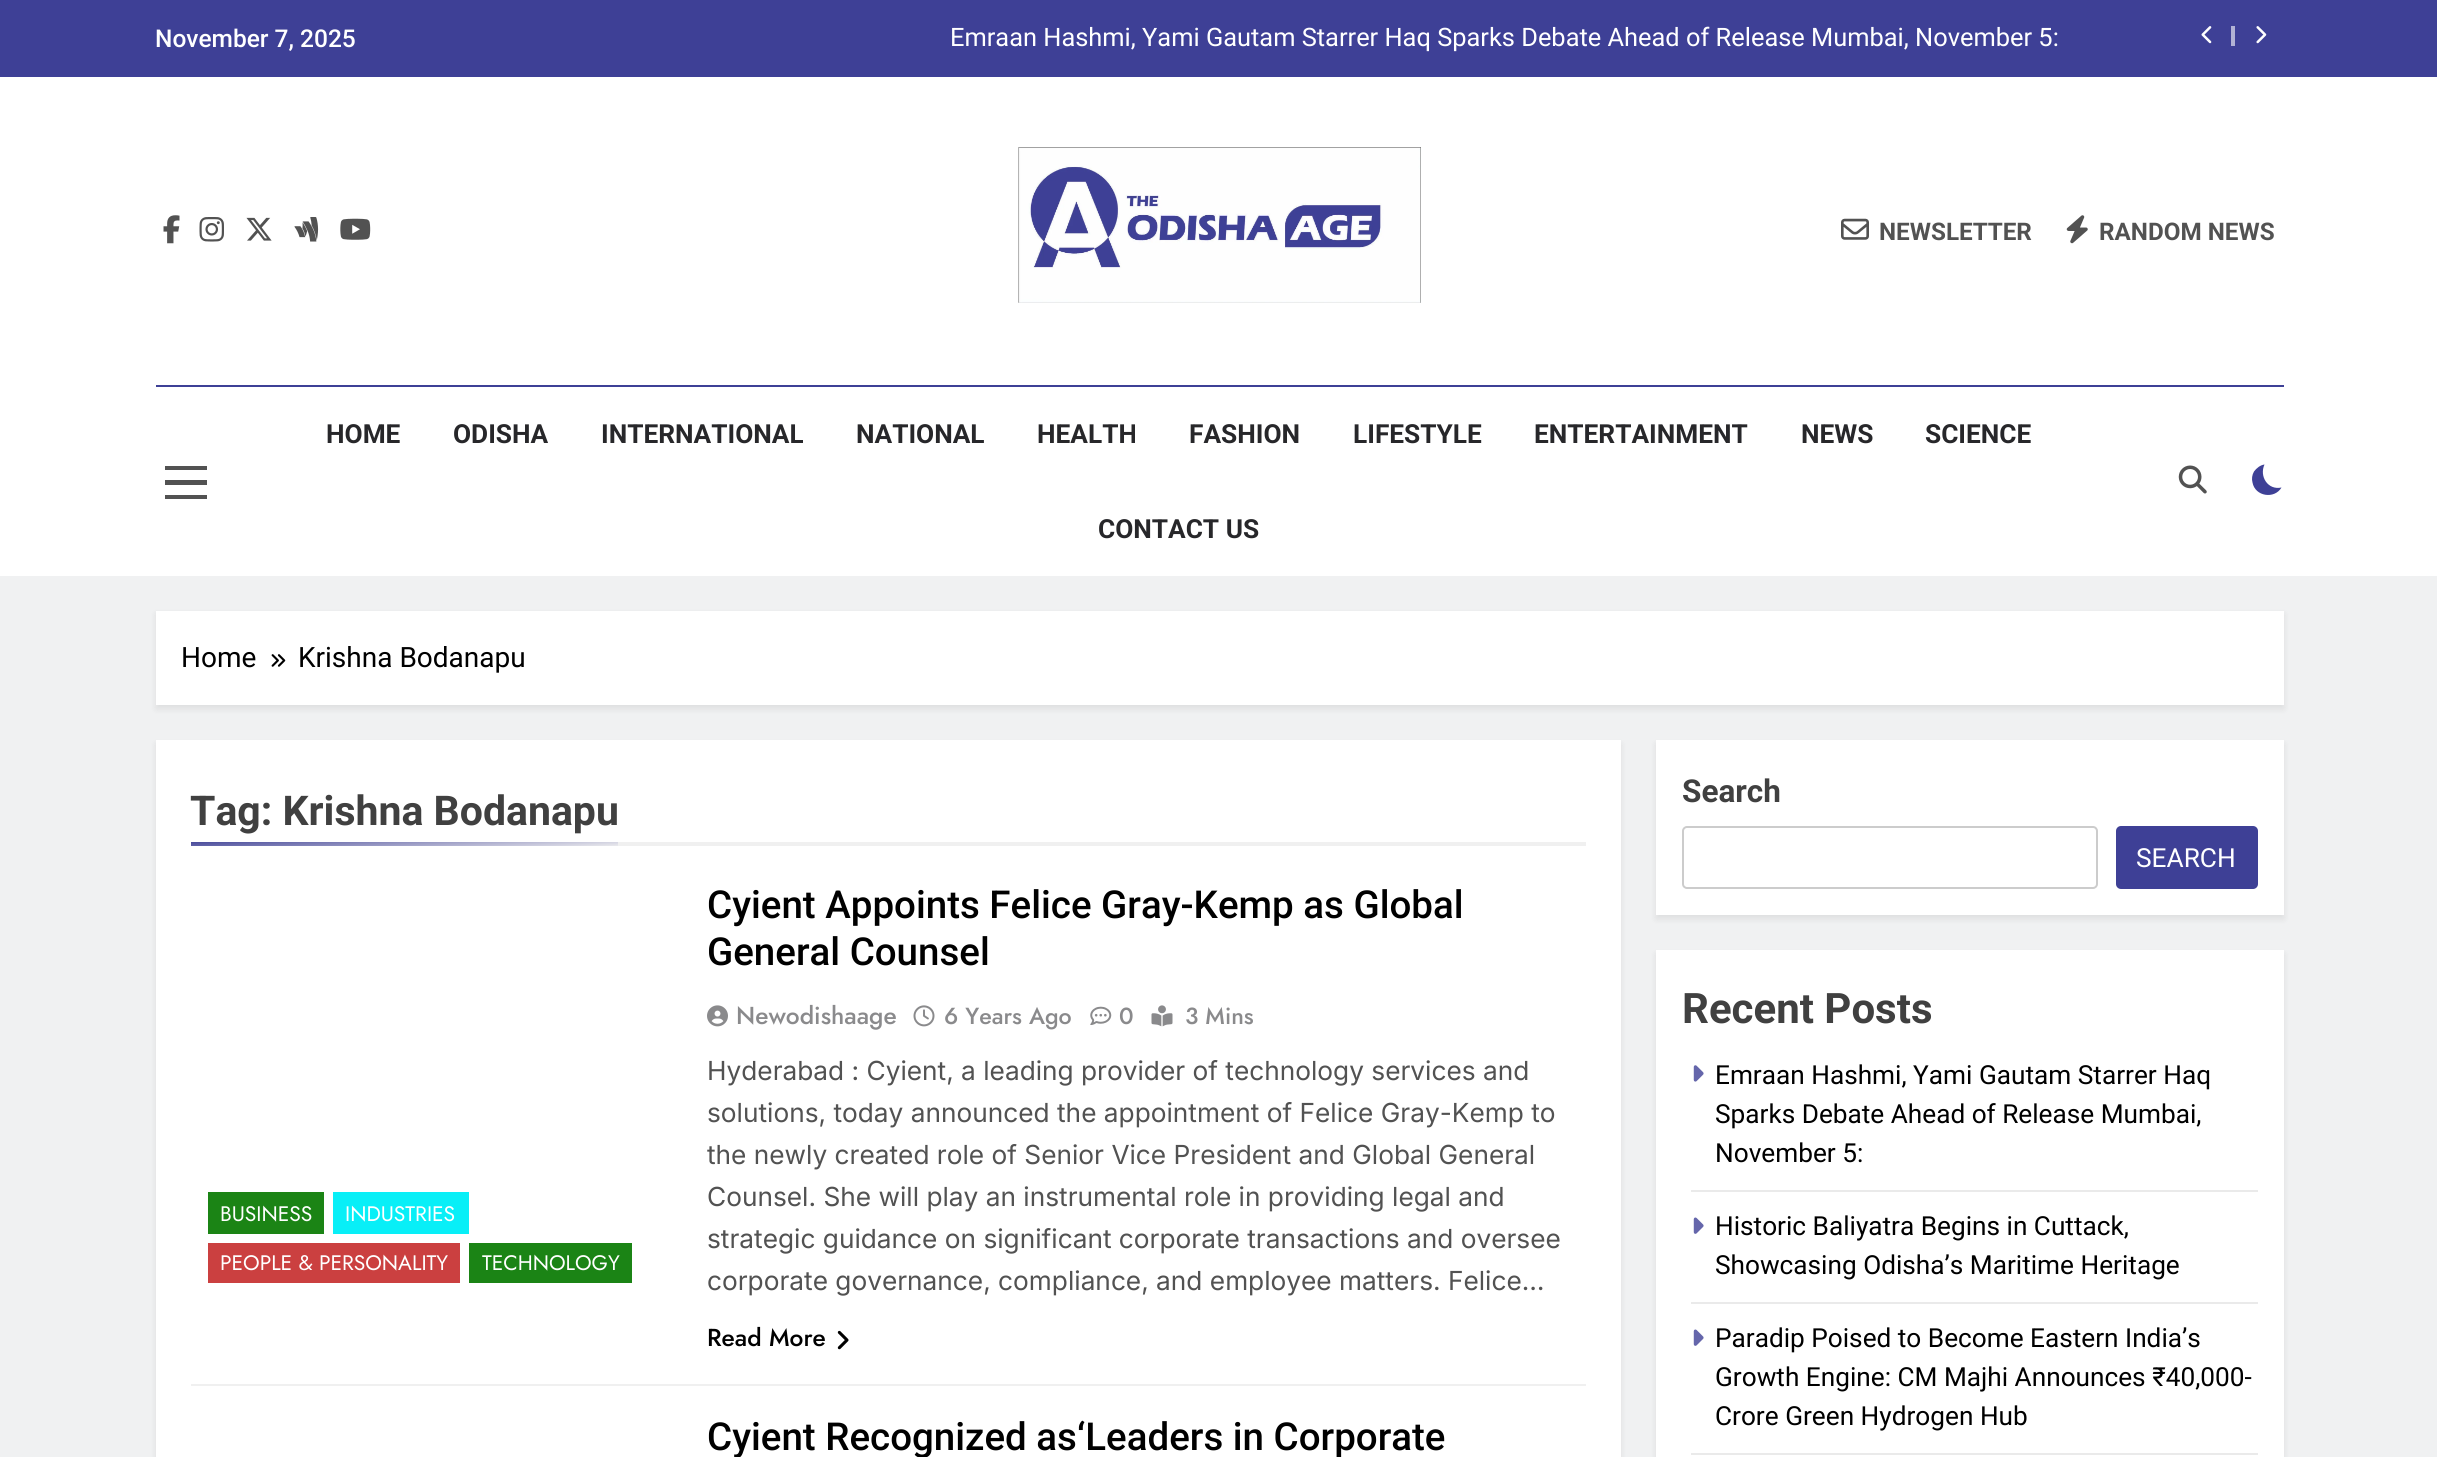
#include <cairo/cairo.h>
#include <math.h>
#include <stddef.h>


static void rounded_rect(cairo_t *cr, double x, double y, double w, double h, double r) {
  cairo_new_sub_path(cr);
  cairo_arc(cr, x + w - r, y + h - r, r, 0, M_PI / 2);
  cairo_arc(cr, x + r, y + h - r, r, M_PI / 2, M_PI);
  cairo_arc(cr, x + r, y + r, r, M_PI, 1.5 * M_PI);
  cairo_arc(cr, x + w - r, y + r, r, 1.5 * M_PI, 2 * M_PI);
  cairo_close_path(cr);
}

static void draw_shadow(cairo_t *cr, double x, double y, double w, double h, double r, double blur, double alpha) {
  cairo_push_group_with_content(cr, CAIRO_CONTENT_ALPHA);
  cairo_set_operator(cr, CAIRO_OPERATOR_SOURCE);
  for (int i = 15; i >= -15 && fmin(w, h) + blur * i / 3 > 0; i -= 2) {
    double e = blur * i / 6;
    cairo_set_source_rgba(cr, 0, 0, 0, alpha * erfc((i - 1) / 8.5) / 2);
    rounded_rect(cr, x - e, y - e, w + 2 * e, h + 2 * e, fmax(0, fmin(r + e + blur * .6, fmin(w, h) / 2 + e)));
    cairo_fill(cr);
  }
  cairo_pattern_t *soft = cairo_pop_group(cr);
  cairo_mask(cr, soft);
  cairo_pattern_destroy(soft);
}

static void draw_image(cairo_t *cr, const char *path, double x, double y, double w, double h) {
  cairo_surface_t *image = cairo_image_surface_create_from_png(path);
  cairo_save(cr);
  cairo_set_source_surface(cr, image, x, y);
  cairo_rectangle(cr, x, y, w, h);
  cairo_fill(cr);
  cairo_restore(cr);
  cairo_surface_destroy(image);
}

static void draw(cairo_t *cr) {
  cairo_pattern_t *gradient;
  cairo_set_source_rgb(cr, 240 / 255.0, 241 / 255.0, 242 / 255.0);
  cairo_paint(cr);
  cairo_set_source_rgb(cr, 62 / 255.0, 64 / 255.0, 150 / 255.0);
  cairo_rectangle(cr, 0, 0, 2437, 77);
  cairo_fill(cr);
  draw_image(cr, "images/1.png", 2201, 26, 11, 18);
  cairo_set_source_rgb(cr, 178 / 255.0, 179 / 255.0, 213 / 255.0);
  cairo_rectangle(cr, 2231, 26, 4, 20);
  cairo_fill(cr);
  draw_image(cr, "images/2.png", 2256, 26, 11, 18);
  cairo_set_source_rgb(cr, 1, 1, 1);
  cairo_rectangle(cr, 0, 77, 2437, 499);
  cairo_fill(cr);
  draw_image(cr, "images/3.png", 163, 215, 17, 29);
  draw_image(cr, "images/4.png", 199, 217, 25, 25);
  draw_image(cr, "images/5.png", 246, 217, 26, 24);
  draw_image(cr, "images/6.png", 294, 217, 25, 25);
  draw_image(cr, "images/7.png", 340, 218, 31, 22);
  draw_image(cr, "images/8.png", 1018, 147, 403, 156);
  draw_image(cr, "images/9.png", 1841, 218, 28, 22);
  draw_image(cr, "images/10.png", 2066, 215, 22, 29);
  cairo_set_source_rgb(cr, 62 / 255.0, 64 / 255.0, 150 / 255.0);
  cairo_rectangle(cr, 156, 385, 2128, 2);
  cairo_fill(cr);
  cairo_set_source_rgb(cr, 82 / 255.0, 82 / 255.0, 82 / 255.0);
  cairo_rectangle(cr, 165, 466, 42, 4);
  cairo_fill(cr);
  cairo_rectangle(cr, 165, 480, 42, 5);
  cairo_fill(cr);
  cairo_rectangle(cr, 165, 495, 42, 4);
  cairo_fill(cr);
  draw_image(cr, "images/11.png", 2178, 465, 29, 29);
  cairo_set_source_rgb(cr, 62 / 255.0, 64 / 255.0, 150 / 255.0);
  cairo_new_path(cr);
  cairo_move_to(cr, 2281.5, 487.5);
  cairo_curve_to(cr, 2268, 490.5, 2259, 476.5, 2264.5, 464.5);
  cairo_curve_to(cr, 2260.5, 465, 2256.5, 468, 2254, 471.5);
  cairo_curve_to(cr, 2252, 475, 2251.5, 479, 2252.5, 482.5);
  cairo_curve_to(cr, 2255, 496.5, 2274.5, 499.5, 2281.5, 487.5);
  cairo_close_path(cr);
  cairo_fill(cr);
  cairo_set_source_rgb(cr, 0, 0, 0);
  draw_shadow(cr, 156, 614, 2128, 95, 0, 3.5, 0.08);
  cairo_set_source_rgb(cr, 1, 1, 1);
  cairo_rectangle(cr, 156, 611, 2128, 94);
  cairo_fill(cr);
  draw_image(cr, "images/12.png", 271, 654, 15, 13);
  cairo_set_source_rgb(cr, 0, 0, 0);
  draw_shadow(cr, 156, 744, 1465, 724, 0, 3.5, 0.08);
  cairo_set_source_rgb(cr, 1, 1, 1);
  cairo_rectangle(cr, 156, 740, 1465, 717);
  cairo_fill(cr);
  cairo_set_source_rgb(cr, 240 / 255.0, 240 / 255.0, 240 / 255.0);
  cairo_rectangle(cr, 618, 842, 968, 4);
  cairo_fill(cr);
  gradient = cairo_pattern_create_linear(403, 827, 405, 860);
  cairo_pattern_add_color_stop_rgba(gradient, 0, 62 / 255.0, 64 / 255.0, 150 / 255.0, 1);
  cairo_pattern_add_color_stop_rgba(gradient, 1, 240 / 255.0, 240 / 255.0, 240 / 255.0, 1);
  cairo_set_source(cr, gradient);
  cairo_pattern_destroy(gradient);
  cairo_rectangle(cr, 191, 842, 427, 4);
  cairo_fill(cr);
  cairo_set_source_rgb(cr, 240 / 255.0, 240 / 255.0, 240 / 255.0);
  cairo_rectangle(cr, 191, 1384, 1395, 2);
  cairo_fill(cr);
  cairo_set_source_rgb(cr, 27 / 255.0, 132 / 255.0, 21 / 255.0);
  cairo_rectangle(cr, 208, 1192, 116, 42);
  cairo_fill(cr);
  cairo_set_source_rgb(cr, 8 / 255.0, 239 / 255.0, 247 / 255.0);
  cairo_rectangle(cr, 333, 1192, 136, 42);
  cairo_fill(cr);
  cairo_set_source_rgb(cr, 203 / 255.0, 64 / 255.0, 64 / 255.0);
  cairo_rectangle(cr, 208, 1243, 252, 40);
  cairo_fill(cr);
  cairo_set_source_rgb(cr, 27 / 255.0, 132 / 255.0, 21 / 255.0);
  cairo_rectangle(cr, 469, 1243, 163, 40);
  cairo_fill(cr);
  draw_image(cr, "images/13.png", 707, 1005, 21, 22);
  draw_image(cr, "images/14.png", 913, 1005, 22, 22);
  draw_image(cr, "images/15.png", 1090, 1006, 22, 19);
  draw_image(cr, "images/16.png", 1151, 1005, 22, 22);
  draw_image(cr, "images/17.png", 837, 1330, 12, 20);
  cairo_set_source_rgb(cr, 0, 0, 0);
  draw_shadow(cr, 1656, 744, 628, 175, 0, 3.5, 0.08);
  cairo_set_source_rgb(cr, 1, 1, 1);
  cairo_rectangle(cr, 1656, 740, 628, 175);
  cairo_fill(cr);
  rounded_rect(cr, 1683, 827, 414, 61, 4);
  cairo_set_source_rgb(cr, 204 / 255.0, 204 / 255.0, 204 / 255.0);
  cairo_stroke(cr);
  cairo_set_source_rgb(cr, 62 / 255.0, 64 / 255.0, 150 / 255.0);
  rounded_rect(cr, 2116, 826, 142, 63, 5);
  cairo_fill(cr);
  cairo_set_source_rgb(cr, 0, 0, 0);
  draw_shadow(cr, 1656, 954, 628, 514, 0, 3.5, 0.08);
  cairo_set_source_rgb(cr, 1, 1, 1);
  cairo_rectangle(cr, 1656, 950, 628, 507);
  cairo_fill(cr);
  cairo_set_source_rgb(cr, 234 / 255.0, 234 / 255.0, 234 / 255.0);
  cairo_rectangle(cr, 1691, 1190, 567, 2);
  cairo_fill(cr);
  draw_image(cr, "images/18.png", 1693, 1065, 11, 17);
  cairo_rectangle(cr, 1691, 1302, 567, 2);
  cairo_fill(cr);
  draw_image(cr, "images/19.png", 1693, 1217, 11, 17);
  cairo_rectangle(cr, 1691, 1453, 567, 2);
  cairo_fill(cr);
  draw_image(cr, "images/19.png", 1693, 1329, 11, 17);
  cairo_select_font_face(cr, "Roboto Medium", CAIRO_FONT_SLANT_NORMAL, CAIRO_FONT_WEIGHT_NORMAL);
  cairo_set_font_size(cr, 24.5);
  cairo_set_source_rgb(cr, 1, 1, 1);
  cairo_move_to(cr, 155, 47);
  cairo_show_text(cr, "November 7, 2025");
  cairo_select_font_face(cr, "Roboto", CAIRO_FONT_SLANT_NORMAL, CAIRO_FONT_WEIGHT_NORMAL);
  cairo_set_font_size(cr, 25.4);
  cairo_move_to(cr, 950, 46);
  cairo_show_text(cr, "Emraan Hashmi, Yami Gautam Starrer Haq Sparks Debate Ahead of Release Mumbai, November 5:");
  cairo_select_font_face(cr, "Roboto", CAIRO_FONT_SLANT_NORMAL, CAIRO_FONT_WEIGHT_BOLD);
  cairo_set_font_size(cr, 24.25);
  cairo_set_source_rgb(cr, 82 / 255.0, 82 / 255.0, 82 / 255.0);
  cairo_move_to(cr, 1879, 240);
  cairo_show_text(cr, "NEWSLETTER");
  cairo_move_to(cr, 2099, 240);
  cairo_show_text(cr, "RANDOM NEWS");
  cairo_set_font_size(cr, 26.25);
  cairo_set_source_rgb(cr, 39 / 255.0, 39 / 255.0, 42 / 255.0);
  cairo_move_to(cr, 326, 443);
  cairo_show_text(cr, "HOME");
  cairo_move_to(cr, 453, 443);
  cairo_show_text(cr, "ODISHA");
  cairo_move_to(cr, 601, 443);
  cairo_show_text(cr, "INTERNATIONAL");
  cairo_move_to(cr, 856, 443);
  cairo_show_text(cr, "NATIONAL");
  cairo_move_to(cr, 1037, 443);
  cairo_show_text(cr, "HEALTH");
  cairo_move_to(cr, 1189, 443);
  cairo_show_text(cr, "FASHION");
  cairo_move_to(cr, 1353, 443);
  cairo_show_text(cr, "LIFESTYLE");
  cairo_move_to(cr, 1534, 443);
  cairo_show_text(cr, "ENTERTAINMENT");
  cairo_move_to(cr, 1801, 443);
  cairo_show_text(cr, "NEWS");
  cairo_move_to(cr, 1925, 443);
  cairo_show_text(cr, "SCIENCE");
  cairo_move_to(cr, 1098, 538);
  cairo_show_text(cr, "CONTACT US");
  cairo_select_font_face(cr, "Roboto", CAIRO_FONT_SLANT_NORMAL, CAIRO_FONT_WEIGHT_NORMAL);
  cairo_set_font_size(cr, 28);
  cairo_set_source_rgb(cr, 0, 0, 0);
  cairo_move_to(cr, 181, 667);
  cairo_show_text(cr, "Home");
  cairo_move_to(cr, 298, 667);
  cairo_show_text(cr, "Krishna Bodanapu");
  cairo_select_font_face(cr, "Roboto", CAIRO_FONT_SLANT_NORMAL, CAIRO_FONT_WEIGHT_BOLD);
  cairo_set_font_size(cr, 41);
  cairo_set_source_rgb(cr, 64 / 255.0, 64 / 255.0, 64 / 255.0);
  cairo_move_to(cr, 190, 825);
  cairo_show_text(cr, "Tag: Krishna Bodanapu");
  cairo_select_font_face(cr, "Jost", CAIRO_FONT_SLANT_NORMAL, CAIRO_FONT_WEIGHT_NORMAL);
  cairo_set_font_size(cr, 21);
  cairo_set_source_rgb(cr, 1, 1, 1);
  cairo_move_to(cr, 220, 1221);
  cairo_show_text(cr, "BUSINESS");
  cairo_move_to(cr, 345, 1221);
  cairo_show_text(cr, "INDUSTRIES");
  cairo_move_to(cr, 220, 1270);
  cairo_show_text(cr, "PEOPLE & PERSONALITY");
  cairo_move_to(cr, 482, 1270);
  cairo_show_text(cr, "TECHNOLOGY");
  cairo_select_font_face(cr, "Roboto Medium", CAIRO_FONT_SLANT_NORMAL, CAIRO_FONT_WEIGHT_NORMAL);
  cairo_set_font_size(cr, 38.5);
  cairo_set_source_rgb(cr, 0, 0, 0);
  cairo_move_to(cr, 707, 918);
  cairo_show_text(cr, "Cyient Appoints Felice Gray-Kemp as Global");
  cairo_move_to(cr, 707, 965);
  cairo_show_text(cr, "General Counsel");
  cairo_select_font_face(cr, "Jost Medium", CAIRO_FONT_SLANT_NORMAL, CAIRO_FONT_WEIGHT_NORMAL);
  cairo_set_font_size(cr, 24.5);
  cairo_set_source_rgb(cr, 138 / 255.0, 138 / 255.0, 140 / 255.0);
  cairo_move_to(cr, 736, 1024);
  cairo_show_text(cr, "Newodishaage");
  cairo_set_font_size(cr, 23.25);
  cairo_move_to(cr, 944, 1024);
  cairo_show_text(cr, "6 Years Ago");
  cairo_move_to(cr, 1119, 1024);
  cairo_show_text(cr, "0");
  cairo_move_to(cr, 1185, 1024);
  cairo_show_text(cr, "3 Mins");
  cairo_select_font_face(cr, "Inter", CAIRO_FONT_SLANT_NORMAL, CAIRO_FONT_WEIGHT_NORMAL);
  cairo_set_font_size(cr, 26.25);
  cairo_set_source_rgb(cr, 82 / 255.0, 82 / 255.0, 82 / 255.0);
  cairo_move_to(cr, 707, 1080);
  cairo_show_text(cr, "Hyderabad : Cyient, a leading provider of technology services and");
  cairo_move_to(cr, 707, 1122);
  cairo_show_text(cr, "solutions, today announced the appointment of Felice Gray-Kemp to");
  cairo_move_to(cr, 707, 1164);
  cairo_show_text(cr, "the newly created role of Senior Vice President and Global General");
  cairo_move_to(cr, 707, 1206);
  cairo_show_text(cr, "Counsel. She will play an instrumental role in providing legal and");
  cairo_move_to(cr, 707, 1248);
  cairo_show_text(cr, "strategic guidance on significant corporate transactions and oversee");
  cairo_move_to(cr, 707, 1290);
  cairo_show_text(cr, "corporate governance, compliance, and employee matters. Felice…");
  cairo_select_font_face(cr, "Jost Medium", CAIRO_FONT_SLANT_NORMAL, CAIRO_FONT_WEIGHT_NORMAL);
  cairo_set_font_size(cr, 24.5);
  cairo_set_source_rgb(cr, 0, 0, 0);
  cairo_move_to(cr, 707, 1346);
  cairo_show_text(cr, "Read More");
  cairo_select_font_face(cr, "Roboto Medium", CAIRO_FONT_SLANT_NORMAL, CAIRO_FONT_WEIGHT_NORMAL);
  cairo_set_font_size(cr, 38.5);
  cairo_move_to(cr, 707, 1450);
  cairo_show_text(cr, "Cyient Recognized as‘Leaders in Corporate");
  cairo_select_font_face(cr, "Roboto", CAIRO_FONT_SLANT_NORMAL, CAIRO_FONT_WEIGHT_BOLD);
  cairo_set_font_size(cr, 31.5);
  cairo_set_source_rgb(cr, 64 / 255.0, 64 / 255.0, 64 / 255.0);
  cairo_move_to(cr, 1682, 802);
  cairo_show_text(cr, "Search");
  cairo_select_font_face(cr, "Roboto", CAIRO_FONT_SLANT_NORMAL, CAIRO_FONT_WEIGHT_NORMAL);
  cairo_set_font_size(cr, 26.25);
  cairo_set_source_rgb(cr, 1, 1, 1);
  cairo_move_to(cr, 2136, 867);
  cairo_show_text(cr, "SEARCH");
  cairo_select_font_face(cr, "Roboto", CAIRO_FONT_SLANT_NORMAL, CAIRO_FONT_WEIGHT_BOLD);
  cairo_set_font_size(cr, 42);
  cairo_set_source_rgb(cr, 64 / 255.0, 64 / 255.0, 64 / 255.0);
  cairo_move_to(cr, 1682, 1023);
  cairo_show_text(cr, "Recent Posts");
  cairo_select_font_face(cr, "Roboto", CAIRO_FONT_SLANT_NORMAL, CAIRO_FONT_WEIGHT_NORMAL);
  cairo_set_font_size(cr, 26.2);
  cairo_set_source_rgb(cr, 0, 0, 0);
  cairo_move_to(cr, 1715, 1084);
  cairo_show_text(cr, "Emraan Hashmi, Yami Gautam Starrer Haq");
  cairo_move_to(cr, 1715, 1123);
  cairo_show_text(cr, "Sparks Debate Ahead of Release Mumbai,");
  cairo_move_to(cr, 1715, 1162);
  cairo_show_text(cr, "November 5:");
  cairo_move_to(cr, 1715, 1235);
  cairo_show_text(cr, "Historic Baliyatra Begins in Cuttack,");
  cairo_move_to(cr, 1715, 1274);
  cairo_show_text(cr, "Showcasing Odisha’s Maritime Heritage");
  cairo_move_to(cr, 1715, 1347);
  cairo_show_text(cr, "Paradip Poised to Become Eastern India’s");
  cairo_move_to(cr, 1715, 1386);
  cairo_show_text(cr, "Growth Engine: CM Majhi Announces ₹40,000-");
  cairo_move_to(cr, 1715, 1425);
  cairo_show_text(cr, "Crore Green Hydrogen Hub");
}

int main(void) {
  cairo_surface_t *surface = cairo_image_surface_create(CAIRO_FORMAT_RGB24, 2437, 1457);
  cairo_t *cr = cairo_create(surface);
  cairo_font_options_t *options = cairo_font_options_create();
  cairo_font_options_set_hint_metrics(options, CAIRO_HINT_METRICS_OFF);
  cairo_font_options_set_hint_style(options, CAIRO_HINT_STYLE_NONE);
  cairo_set_font_options(cr, options);
  cairo_set_miter_limit(cr, 4);
  draw(cr);
  cairo_surface_write_to_png(surface, "out.png");
  cairo_font_options_destroy(options);
  cairo_destroy(cr);
  cairo_surface_destroy(surface);
  return 0;
}
